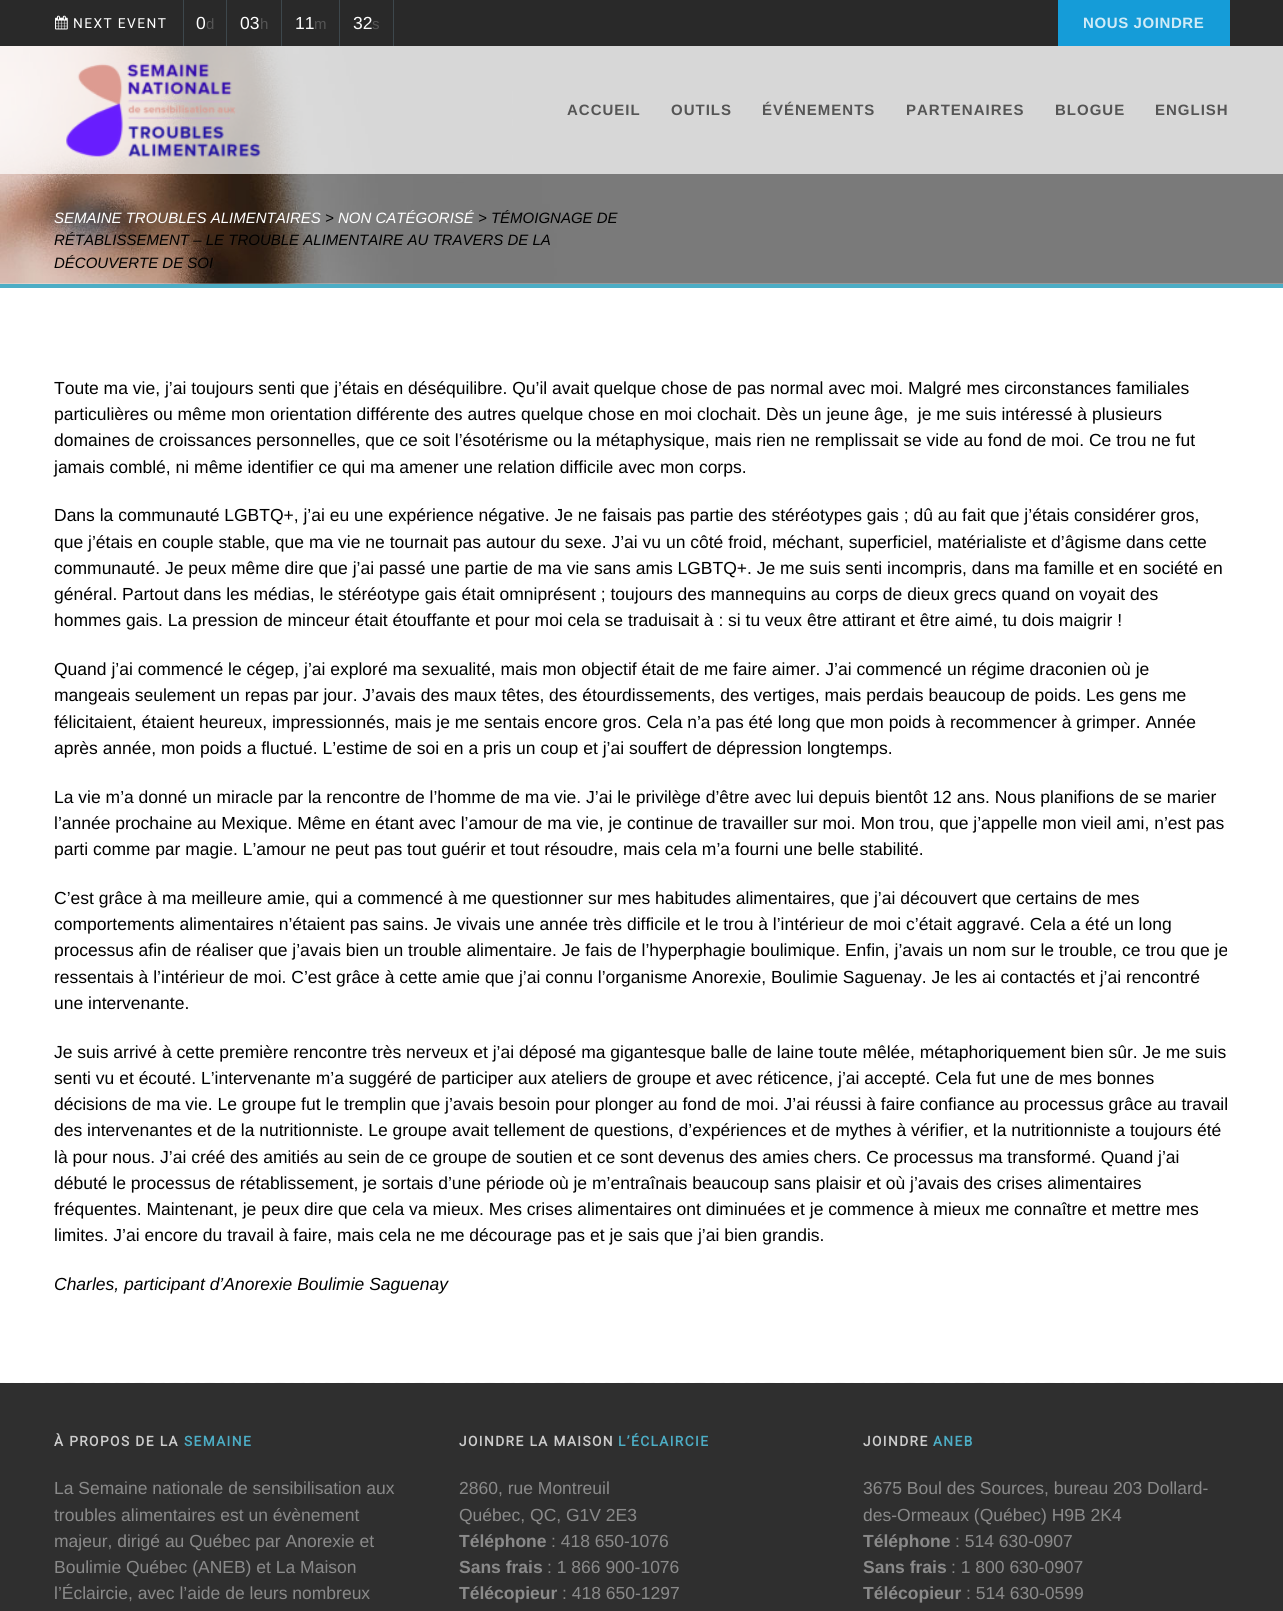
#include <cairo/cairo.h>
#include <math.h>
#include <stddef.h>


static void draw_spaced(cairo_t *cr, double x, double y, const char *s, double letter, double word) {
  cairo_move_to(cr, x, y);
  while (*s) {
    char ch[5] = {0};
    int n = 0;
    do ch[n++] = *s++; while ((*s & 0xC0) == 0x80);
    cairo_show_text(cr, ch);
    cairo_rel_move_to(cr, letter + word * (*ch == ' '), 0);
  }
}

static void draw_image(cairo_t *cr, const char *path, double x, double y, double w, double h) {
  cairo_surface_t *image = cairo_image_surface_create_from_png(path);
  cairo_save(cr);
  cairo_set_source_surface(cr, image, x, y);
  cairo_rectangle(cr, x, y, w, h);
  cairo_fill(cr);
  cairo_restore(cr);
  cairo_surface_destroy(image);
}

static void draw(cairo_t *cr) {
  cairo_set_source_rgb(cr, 1, 1, 1);
  cairo_paint(cr);
  cairo_set_source_rgb(cr, 41 / 255.0, 41 / 255.0, 41 / 255.0);
  cairo_rectangle(cr, 0, 0, 1283, 46);
  cairo_fill(cr);
  cairo_set_source_rgb(cr, 61 / 255.0, 71 / 255.0, 76 / 255.0);
  cairo_rectangle(cr, 183, 0, 1, 46);
  cairo_fill(cr);
  draw_image(cr, "images/1.png", 55, 15, 13, 15);
  cairo_rectangle(cr, 226, 0, 1, 46);
  cairo_fill(cr);
  cairo_rectangle(cr, 281, 0, 1, 46);
  cairo_fill(cr);
  cairo_rectangle(cr, 339, 0, 1, 46);
  cairo_fill(cr);
  cairo_rectangle(cr, 393, 0, 1, 46);
  cairo_fill(cr);
  cairo_set_source_rgb(cr, 21 / 255.0, 156 / 255.0, 216 / 255.0);
  cairo_rectangle(cr, 1058, 0, 172, 46);
  cairo_fill(cr);
  draw_image(cr, "images/3.png", 0, 46, 1283, 238);
  cairo_set_source_rgba(cr, 1, 1, 1, 0.7);
  cairo_rectangle(cr, 0, 46, 1283, 128);
  cairo_fill(cr);
  draw_image(cr, "images/2.png", 66, 63, 195, 94);
  cairo_set_source_rgb(cr, 76 / 255.0, 173 / 255.0, 197 / 255.0);
  cairo_rectangle(cr, 0, 284, 1283, 4);
  cairo_fill(cr);
  cairo_set_source_rgb(cr, 47 / 255.0, 47 / 255.0, 47 / 255.0);
  cairo_rectangle(cr, 0, 1383, 1283, 228);
  cairo_fill(cr);
  draw_image(cr, "images/4.png", 0, 1382, 1261, 1);
  cairo_select_font_face(cr, "Roboto", CAIRO_FONT_SLANT_NORMAL, CAIRO_FONT_WEIGHT_NORMAL);
  cairo_set_font_size(cr, 13.75);
  cairo_set_source_rgb(cr, 1, 1, 1);
  draw_spaced(cr, 73, 28, "NEXT EVENT", 1.4, 0);
  cairo_select_font_face(cr, "Liberation Sans", CAIRO_FONT_SLANT_NORMAL, CAIRO_FONT_WEIGHT_NORMAL);
  cairo_set_font_size(cr, 17.5);
  cairo_move_to(cr, 196, 29);
  cairo_show_text(cr, "0");
  cairo_set_font_size(cr, 15);
  cairo_set_source_rgb(cr, 85 / 255.0, 85 / 255.0, 85 / 255.0);
  cairo_move_to(cr, 206, 29);
  cairo_show_text(cr, "d");
  cairo_set_font_size(cr, 17.5);
  cairo_set_source_rgb(cr, 1, 1, 1);
  cairo_move_to(cr, 240, 29);
  cairo_show_text(cr, "03");
  cairo_set_font_size(cr, 15);
  cairo_set_source_rgb(cr, 85 / 255.0, 85 / 255.0, 85 / 255.0);
  cairo_move_to(cr, 260, 29);
  cairo_show_text(cr, "h");
  cairo_set_font_size(cr, 17.5);
  cairo_set_source_rgb(cr, 1, 1, 1);
  cairo_move_to(cr, 295, 29);
  cairo_show_text(cr, "11");
  cairo_set_font_size(cr, 15);
  cairo_set_source_rgb(cr, 85 / 255.0, 85 / 255.0, 85 / 255.0);
  cairo_move_to(cr, 314, 29);
  cairo_show_text(cr, "m");
  cairo_set_font_size(cr, 17.5);
  cairo_set_source_rgb(cr, 1, 1, 1);
  cairo_move_to(cr, 353, 29);
  cairo_show_text(cr, "32");
  cairo_set_font_size(cr, 15);
  cairo_set_source_rgb(cr, 85 / 255.0, 85 / 255.0, 85 / 255.0);
  cairo_move_to(cr, 372, 29);
  cairo_show_text(cr, "s");
  cairo_select_font_face(cr, "Liberation Sans", CAIRO_FONT_SLANT_NORMAL, CAIRO_FONT_WEIGHT_BOLD);
  cairo_set_source_rgb(cr, 208 / 255.0, 235 / 255.0, 247 / 255.0);
  draw_spaced(cr, 1083, 28, "NOUS JOINDRE", 0.6, 0);
  cairo_set_source_rgb(cr, 85 / 255.0, 85 / 255.0, 85 / 255.0);
  draw_spaced(cr, 567, 115, "ACCUEIL", 1, 0);
  draw_spaced(cr, 671, 115, "OUTILS", 1, 0);
  draw_spaced(cr, 762, 115, "ÉVÉNEMENTS", 1, 0);
  draw_spaced(cr, 906, 115, "PARTENAIRES", 1, 0);
  draw_spaced(cr, 1055, 115, "BLOGUE", 1, 0);
  draw_spaced(cr, 1155, 115, "ENGLISH", 1, 0);
  cairo_select_font_face(cr, "Liberation Sans", CAIRO_FONT_SLANT_ITALIC, CAIRO_FONT_WEIGHT_NORMAL);
  cairo_set_source_rgb(cr, 1, 1, 1);
  cairo_move_to(cr, 54, 223);
  cairo_show_text(cr, "SEMAINE TROUBLES ALIMENTAIRES");
  cairo_set_source_rgb(cr, 0, 0, 0);
  cairo_move_to(cr, 325, 223);
  cairo_show_text(cr, ">");
  cairo_set_source_rgb(cr, 1, 1, 1);
  cairo_move_to(cr, 338, 223);
  cairo_show_text(cr, "NON CATÉGORISÉ");
  cairo_set_source_rgb(cr, 0, 0, 0);
  cairo_move_to(cr, 478, 223);
  cairo_show_text(cr, "> TÉMOIGNAGE DE");
  cairo_move_to(cr, 54, 245);
  cairo_show_text(cr, "RÉTABLISSEMENT – LE TROUBLE ALIMENTAIRE AU TRAVERS DE LA");
  cairo_move_to(cr, 54, 268);
  cairo_show_text(cr, "DÉCOUVERTE DE SOI");
  cairo_select_font_face(cr, "Liberation Sans", CAIRO_FONT_SLANT_NORMAL, CAIRO_FONT_WEIGHT_NORMAL);
  cairo_set_font_size(cr, 17.5);
  cairo_move_to(cr, 54, 394);
  cairo_show_text(cr, "Toute ma vie, j’ai toujours senti que j’étais en déséquilibre. Qu’il avait quelque chose de pas normal avec moi. Malgré mes circonstances familiales");
  cairo_move_to(cr, 54, 420);
  cairo_show_text(cr, "particulières ou même mon orientation différente des autres quelque chose en moi clochait. Dès un jeune âge,  je me suis intéressé à plusieurs");
  cairo_move_to(cr, 54, 446);
  cairo_show_text(cr, "domaines de croissances personnelles, que ce soit l’ésotérisme ou la métaphysique, mais rien ne remplissait se vide au fond de moi. Ce trou ne fut");
  cairo_move_to(cr, 54, 473);
  cairo_show_text(cr, "jamais comblé, ni même identifier ce qui ma amener une relation difficile avec mon corps.");
  cairo_move_to(cr, 54, 521);
  cairo_show_text(cr, "Dans la communauté LGBTQ+, j’ai eu une expérience négative. Je ne faisais pas partie des stéréotypes gais ; dû au fait que j’étais considérer gros,");
  cairo_move_to(cr, 54, 548);
  cairo_show_text(cr, "que j’étais en couple stable, que ma vie ne tournait pas autour du sexe. J’ai vu un côté froid, méchant, superficiel, matérialiste et d’âgisme dans cette");
  cairo_move_to(cr, 54, 574);
  cairo_show_text(cr, "communauté. Je peux même dire que j’ai passé une partie de ma vie sans amis LGBTQ+. Je me suis senti incompris, dans ma famille et en société en");
  cairo_move_to(cr, 54, 600);
  cairo_show_text(cr, "général. Partout dans les médias, le stéréotype gais était omniprésent ; toujours des mannequins au corps de dieux grecs quand on voyait des");
  cairo_move_to(cr, 54, 626);
  cairo_show_text(cr, "hommes gais. La pression de minceur était étouffante et pour moi cela se traduisait à : si tu veux être attirant et être aimé, tu dois maigrir !");
  cairo_move_to(cr, 54, 675);
  cairo_show_text(cr, "Quand j’ai commencé le cégep, j’ai exploré ma sexualité, mais mon objectif était de me faire aimer. J’ai commencé un régime draconien où je");
  cairo_move_to(cr, 54, 701);
  cairo_show_text(cr, "mangeais seulement un repas par jour. J’avais des maux têtes, des étourdissements, des vertiges, mais perdais beaucoup de poids. Les gens me");
  cairo_move_to(cr, 54, 728);
  cairo_show_text(cr, "félicitaient, étaient heureux, impressionnés, mais je me sentais encore gros. Cela n’a pas été long que mon poids à recommencer à grimper. Année");
  cairo_move_to(cr, 54, 754);
  cairo_show_text(cr, "après année, mon poids a fluctué. L’estime de soi en a pris un coup et j’ai souffert de dépression longtemps.");
  cairo_move_to(cr, 54, 803);
  cairo_show_text(cr, "La vie m’a donné un miracle par la rencontre de l’homme de ma vie. J’ai le privilège d’être avec lui depuis bientôt 12 ans. Nous planifions de se marier");
  cairo_move_to(cr, 54, 829);
  cairo_show_text(cr, "l’année prochaine au Mexique. Même en étant avec l’amour de ma vie, je continue de travailler sur moi. Mon trou, que j’appelle mon vieil ami, n’est pas");
  cairo_move_to(cr, 54, 855);
  cairo_show_text(cr, "parti comme par magie. L’amour ne peut pas tout guérir et tout résoudre, mais cela m’a fourni une belle stabilité.");
  cairo_move_to(cr, 54, 904);
  cairo_show_text(cr, "C’est grâce à ma meilleure amie, qui a commencé à me questionner sur mes habitudes alimentaires, que j’ai découvert que certains de mes");
  cairo_move_to(cr, 54, 930);
  cairo_show_text(cr, "comportements alimentaires n’étaient pas sains. Je vivais une année très difficile et le trou à l’intérieur de moi c’était aggravé. Cela a été un long");
  cairo_move_to(cr, 54, 956);
  cairo_show_text(cr, "processus afin de réaliser que j’avais bien un trouble alimentaire. Je fais de l’hyperphagie boulimique. Enfin, j’avais un nom sur le trouble, ce trou que je");
  cairo_move_to(cr, 54, 983);
  cairo_show_text(cr, "ressentais à l’intérieur de moi. C’est grâce à cette amie que j’ai connu l’organisme Anorexie, Boulimie Saguenay. Je les ai contactés et j’ai rencontré");
  cairo_move_to(cr, 54, 1009);
  cairo_show_text(cr, "une intervenante.");
  cairo_move_to(cr, 54, 1058);
  cairo_show_text(cr, "Je suis arrivé à cette première rencontre très nerveux et j’ai déposé ma gigantesque balle de laine toute mêlée, métaphoriquement bien sûr. Je me suis");
  cairo_move_to(cr, 54, 1084);
  cairo_show_text(cr, "senti vu et écouté. L’intervenante m’a suggéré de participer aux ateliers de groupe et avec réticence, j’ai accepté. Cela fut une de mes bonnes");
  cairo_move_to(cr, 54, 1110);
  cairo_show_text(cr, "décisions de ma vie. Le groupe fut le tremplin que j’avais besoin pour plonger au fond de moi. J’ai réussi à faire confiance au processus grâce au travail");
  cairo_move_to(cr, 54, 1136);
  cairo_show_text(cr, "des intervenantes et de la nutritionniste. Le groupe avait tellement de questions, d’expériences et de mythes à vérifier, et la nutritionniste a toujours été");
  cairo_move_to(cr, 54, 1163);
  cairo_show_text(cr, "là pour nous. J’ai créé des amitiés au sein de ce groupe de soutien et ce sont devenus des amies chers. Ce processus ma transformé. Quand j’ai");
  cairo_move_to(cr, 54, 1189);
  cairo_show_text(cr, "débuté le processus de rétablissement, je sortais d’une période où je m’entraînais beaucoup sans plaisir et où j’avais des crises alimentaires");
  cairo_move_to(cr, 54, 1215);
  cairo_show_text(cr, "fréquentes. Maintenant, je peux dire que cela va mieux. Mes crises alimentaires ont diminuées et je commence à mieux me connaître et mettre mes");
  cairo_move_to(cr, 54, 1241);
  cairo_show_text(cr, "limites. J’ai encore du travail à faire, mais cela ne me décourage pas et je sais que j’ai bien grandis.");
  cairo_select_font_face(cr, "Liberation Sans", CAIRO_FONT_SLANT_ITALIC, CAIRO_FONT_WEIGHT_NORMAL);
  cairo_move_to(cr, 54, 1290);
  cairo_show_text(cr, "Charles, participant d’Anorexie Boulimie Saguenay");
  cairo_select_font_face(cr, "Roboto", CAIRO_FONT_SLANT_NORMAL, CAIRO_FONT_WEIGHT_BOLD);
  cairo_set_font_size(cr, 13.75);
  cairo_set_source_rgb(cr, 204 / 255.0, 204 / 255.0, 204 / 255.0);
  draw_spaced(cr, 54, 1446, "À PROPOS DE LA", 1.4, 0);
  cairo_set_source_rgb(cr, 76 / 255.0, 173 / 255.0, 197 / 255.0);
  draw_spaced(cr, 184, 1446, "SEMAINE", 1.4, 0);
  cairo_select_font_face(cr, "Liberation Sans", CAIRO_FONT_SLANT_NORMAL, CAIRO_FONT_WEIGHT_NORMAL);
  cairo_set_font_size(cr, 17.5);
  cairo_set_source_rgb(cr, 138 / 255.0, 138 / 255.0, 138 / 255.0);
  cairo_move_to(cr, 54, 1494);
  cairo_show_text(cr, "La Semaine nationale de sensibilisation aux");
  cairo_move_to(cr, 54, 1521);
  cairo_show_text(cr, "troubles alimentaires est un évènement");
  cairo_move_to(cr, 54, 1547);
  cairo_show_text(cr, "majeur, dirigé au Québec par Anorexie et");
  cairo_move_to(cr, 54, 1573);
  cairo_show_text(cr, "Boulimie Québec (ANEB) et La Maison");
  cairo_move_to(cr, 54, 1599);
  cairo_show_text(cr, "l’Éclaircie, avec l’aide de leurs nombreux");
  cairo_select_font_face(cr, "Roboto", CAIRO_FONT_SLANT_NORMAL, CAIRO_FONT_WEIGHT_BOLD);
  cairo_set_font_size(cr, 13.75);
  cairo_set_source_rgb(cr, 204 / 255.0, 204 / 255.0, 204 / 255.0);
  draw_spaced(cr, 459, 1446, "JOINDRE LA MAISON", 1.4, 0);
  cairo_set_source_rgb(cr, 76 / 255.0, 173 / 255.0, 197 / 255.0);
  draw_spaced(cr, 618, 1446, "L’ÉCLAIRCIE", 1.4, 0);
  cairo_select_font_face(cr, "Liberation Sans", CAIRO_FONT_SLANT_NORMAL, CAIRO_FONT_WEIGHT_NORMAL);
  cairo_set_font_size(cr, 17.5);
  cairo_set_source_rgb(cr, 138 / 255.0, 138 / 255.0, 138 / 255.0);
  cairo_move_to(cr, 459, 1494);
  cairo_show_text(cr, "2860, rue Montreuil");
  cairo_move_to(cr, 459, 1521);
  cairo_show_text(cr, "Québec, QC, G1V 2E3");
  cairo_select_font_face(cr, "Liberation Sans", CAIRO_FONT_SLANT_NORMAL, CAIRO_FONT_WEIGHT_BOLD);
  cairo_move_to(cr, 459, 1547);
  cairo_show_text(cr, "Téléphone");
  cairo_select_font_face(cr, "Liberation Sans", CAIRO_FONT_SLANT_NORMAL, CAIRO_FONT_WEIGHT_NORMAL);
  cairo_move_to(cr, 551, 1547);
  cairo_show_text(cr, ": 418 650-1076");
  cairo_select_font_face(cr, "Liberation Sans", CAIRO_FONT_SLANT_NORMAL, CAIRO_FONT_WEIGHT_BOLD);
  cairo_move_to(cr, 459, 1573);
  cairo_show_text(cr, "Sans frais");
  cairo_select_font_face(cr, "Liberation Sans", CAIRO_FONT_SLANT_NORMAL, CAIRO_FONT_WEIGHT_NORMAL);
  cairo_move_to(cr, 547, 1573);
  cairo_show_text(cr, ": 1 866 900-1076");
  cairo_select_font_face(cr, "Liberation Sans", CAIRO_FONT_SLANT_NORMAL, CAIRO_FONT_WEIGHT_BOLD);
  cairo_move_to(cr, 459, 1599);
  cairo_show_text(cr, "Télécopieur");
  cairo_select_font_face(cr, "Liberation Sans", CAIRO_FONT_SLANT_NORMAL, CAIRO_FONT_WEIGHT_NORMAL);
  cairo_move_to(cr, 562, 1599);
  cairo_show_text(cr, ": 418 650-1297");
  cairo_select_font_face(cr, "Roboto", CAIRO_FONT_SLANT_NORMAL, CAIRO_FONT_WEIGHT_BOLD);
  cairo_set_font_size(cr, 13.75);
  cairo_set_source_rgb(cr, 204 / 255.0, 204 / 255.0, 204 / 255.0);
  draw_spaced(cr, 863, 1446, "JOINDRE", 1.4, 0);
  cairo_set_source_rgb(cr, 76 / 255.0, 173 / 255.0, 197 / 255.0);
  draw_spaced(cr, 933, 1446, "ANEB", 1.4, 0);
  cairo_select_font_face(cr, "Liberation Sans", CAIRO_FONT_SLANT_NORMAL, CAIRO_FONT_WEIGHT_NORMAL);
  cairo_set_font_size(cr, 17.5);
  cairo_set_source_rgb(cr, 138 / 255.0, 138 / 255.0, 138 / 255.0);
  cairo_move_to(cr, 863, 1494);
  cairo_show_text(cr, "3675 Boul des Sources, bureau 203 Dollard-");
  cairo_move_to(cr, 863, 1521);
  cairo_show_text(cr, "des-Ormeaux (Québec) H9B 2K4");
  cairo_select_font_face(cr, "Liberation Sans", CAIRO_FONT_SLANT_NORMAL, CAIRO_FONT_WEIGHT_BOLD);
  cairo_move_to(cr, 863, 1547);
  cairo_show_text(cr, "Téléphone");
  cairo_select_font_face(cr, "Liberation Sans", CAIRO_FONT_SLANT_NORMAL, CAIRO_FONT_WEIGHT_NORMAL);
  cairo_move_to(cr, 955, 1547);
  cairo_show_text(cr, ": 514 630-0907");
  cairo_select_font_face(cr, "Liberation Sans", CAIRO_FONT_SLANT_NORMAL, CAIRO_FONT_WEIGHT_BOLD);
  cairo_move_to(cr, 863, 1573);
  cairo_show_text(cr, "Sans frais");
  cairo_select_font_face(cr, "Liberation Sans", CAIRO_FONT_SLANT_NORMAL, CAIRO_FONT_WEIGHT_NORMAL);
  cairo_move_to(cr, 951, 1573);
  cairo_show_text(cr, ": 1 800 630-0907");
  cairo_select_font_face(cr, "Liberation Sans", CAIRO_FONT_SLANT_NORMAL, CAIRO_FONT_WEIGHT_BOLD);
  cairo_move_to(cr, 863, 1599);
  cairo_show_text(cr, "Télécopieur");
  cairo_select_font_face(cr, "Liberation Sans", CAIRO_FONT_SLANT_NORMAL, CAIRO_FONT_WEIGHT_NORMAL);
  cairo_move_to(cr, 966, 1599);
  cairo_show_text(cr, ": 514 630-0599");
}

int main(void) {
  cairo_surface_t *surface = cairo_image_surface_create(CAIRO_FORMAT_RGB24, 1283, 1611);
  cairo_t *cr = cairo_create(surface);
  cairo_font_options_t *options = cairo_font_options_create();
  cairo_font_options_set_hint_metrics(options, CAIRO_HINT_METRICS_OFF);
  cairo_font_options_set_hint_style(options, CAIRO_HINT_STYLE_NONE);
  cairo_set_font_options(cr, options);
  cairo_set_miter_limit(cr, 4);
  draw(cr);
  cairo_surface_write_to_png(surface, "out.png");
  cairo_font_options_destroy(options);
  cairo_destroy(cr);
  cairo_surface_destroy(surface);
  return 0;
}
